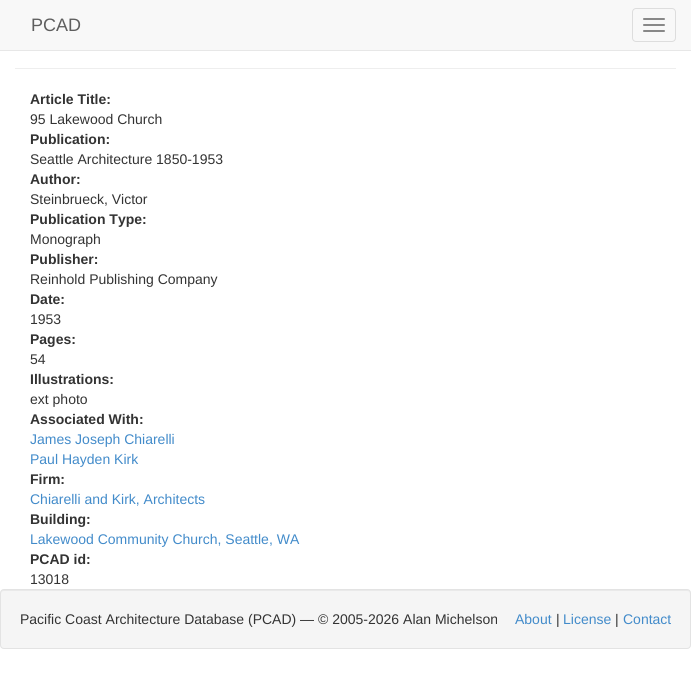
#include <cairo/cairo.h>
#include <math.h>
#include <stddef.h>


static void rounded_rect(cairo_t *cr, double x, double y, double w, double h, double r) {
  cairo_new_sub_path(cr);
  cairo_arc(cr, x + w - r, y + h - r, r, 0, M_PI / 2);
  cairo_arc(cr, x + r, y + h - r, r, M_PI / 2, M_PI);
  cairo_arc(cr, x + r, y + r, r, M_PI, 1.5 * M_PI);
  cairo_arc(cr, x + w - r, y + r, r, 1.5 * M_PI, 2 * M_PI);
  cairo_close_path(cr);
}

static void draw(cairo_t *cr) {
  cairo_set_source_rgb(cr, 1, 1, 1);
  cairo_paint(cr);
  cairo_set_source_rgb(cr, 248 / 255.0, 248 / 255.0, 248 / 255.0);
  cairo_rectangle(cr, 0, 0, 691, 50);
  cairo_fill(cr);
  cairo_set_source_rgb(cr, 231 / 255.0, 231 / 255.0, 231 / 255.0);
  cairo_rectangle(cr, 0, 50, 691, 1);
  cairo_fill(cr);
  rounded_rect(cr, 632.5, 8.5, 43, 33, 3.5);
  cairo_set_source_rgb(cr, 221 / 255.0, 221 / 255.0, 221 / 255.0);
  cairo_set_line_width(cr, 1);
  cairo_stroke(cr);
  cairo_set_source_rgb(cr, 136 / 255.0, 136 / 255.0, 136 / 255.0);
  rounded_rect(cr, 643, 18, 22, 2, 1);
  cairo_fill(cr);
  rounded_rect(cr, 643, 24, 22, 2, 1);
  cairo_fill(cr);
  rounded_rect(cr, 643, 30, 22, 2, 1);
  cairo_fill(cr);
  cairo_set_source_rgb(cr, 238 / 255.0, 238 / 255.0, 238 / 255.0);
  cairo_rectangle(cr, 15, 68, 661, 1);
  cairo_fill(cr);
  cairo_set_source_rgb(cr, 245 / 255.0, 245 / 255.0, 245 / 255.0);
  rounded_rect(cr, 0, 589, 691, 60, 4);
  cairo_fill(cr);
  cairo_set_source_rgb(cr, 233 / 255.0, 233 / 255.0, 233 / 255.0);
  cairo_new_path(cr);
  cairo_move_to(cr, 4, 591);
  cairo_line_to(cr, 687, 591);
  cairo_curve_to(cr, 689, 591, 690, 592, 690, 594);
  cairo_line_to(cr, 690, 593);
  cairo_curve_to(cr, 690, 591, 689, 590, 687, 590);
  cairo_line_to(cr, 4, 590);
  cairo_curve_to(cr, 2, 590, 1, 591, 1, 593);
  cairo_line_to(cr, 1, 594);
  cairo_curve_to(cr, 1, 592, 2, 591, 4, 591);
  cairo_close_path(cr);
  cairo_fill(cr);
  rounded_rect(cr, 0.5, 589.5, 690, 59, 3.5);
  cairo_set_source_rgb(cr, 227 / 255.0, 227 / 255.0, 227 / 255.0);
  cairo_stroke(cr);
  cairo_select_font_face(cr, "Liberation Sans", CAIRO_FONT_SLANT_NORMAL, CAIRO_FONT_WEIGHT_NORMAL);
  cairo_set_font_size(cr, 18);
  cairo_set_source_rgb(cr, 94 / 255.0, 94 / 255.0, 94 / 255.0);
  cairo_move_to(cr, 31, 31);
  cairo_show_text(cr, "PCAD");
  cairo_select_font_face(cr, "Liberation Sans", CAIRO_FONT_SLANT_NORMAL, CAIRO_FONT_WEIGHT_BOLD);
  cairo_set_font_size(cr, 14);
  cairo_set_source_rgb(cr, 51 / 255.0, 51 / 255.0, 51 / 255.0);
  cairo_move_to(cr, 30, 104);
  cairo_show_text(cr, "Article Title:");
  cairo_select_font_face(cr, "Liberation Sans", CAIRO_FONT_SLANT_NORMAL, CAIRO_FONT_WEIGHT_NORMAL);
  cairo_move_to(cr, 30, 124);
  cairo_show_text(cr, "95 Lakewood Church");
  cairo_select_font_face(cr, "Liberation Sans", CAIRO_FONT_SLANT_NORMAL, CAIRO_FONT_WEIGHT_BOLD);
  cairo_move_to(cr, 30, 144);
  cairo_show_text(cr, "Publication:");
  cairo_select_font_face(cr, "Liberation Sans", CAIRO_FONT_SLANT_NORMAL, CAIRO_FONT_WEIGHT_NORMAL);
  cairo_move_to(cr, 30, 164);
  cairo_show_text(cr, "Seattle Architecture 1850-1953");
  cairo_select_font_face(cr, "Liberation Sans", CAIRO_FONT_SLANT_NORMAL, CAIRO_FONT_WEIGHT_BOLD);
  cairo_move_to(cr, 30, 184);
  cairo_show_text(cr, "Author:");
  cairo_select_font_face(cr, "Liberation Sans", CAIRO_FONT_SLANT_NORMAL, CAIRO_FONT_WEIGHT_NORMAL);
  cairo_move_to(cr, 30, 204);
  cairo_show_text(cr, "Steinbrueck, Victor");
  cairo_select_font_face(cr, "Liberation Sans", CAIRO_FONT_SLANT_NORMAL, CAIRO_FONT_WEIGHT_BOLD);
  cairo_move_to(cr, 30, 224);
  cairo_show_text(cr, "Publication Type:");
  cairo_select_font_face(cr, "Liberation Sans", CAIRO_FONT_SLANT_NORMAL, CAIRO_FONT_WEIGHT_NORMAL);
  cairo_move_to(cr, 30, 244);
  cairo_show_text(cr, "Monograph");
  cairo_select_font_face(cr, "Liberation Sans", CAIRO_FONT_SLANT_NORMAL, CAIRO_FONT_WEIGHT_BOLD);
  cairo_move_to(cr, 30, 264);
  cairo_show_text(cr, "Publisher:");
  cairo_select_font_face(cr, "Liberation Sans", CAIRO_FONT_SLANT_NORMAL, CAIRO_FONT_WEIGHT_NORMAL);
  cairo_move_to(cr, 30, 284);
  cairo_show_text(cr, "Reinhold Publishing Company");
  cairo_select_font_face(cr, "Liberation Sans", CAIRO_FONT_SLANT_NORMAL, CAIRO_FONT_WEIGHT_BOLD);
  cairo_move_to(cr, 30, 304);
  cairo_show_text(cr, "Date:");
  cairo_select_font_face(cr, "Liberation Sans", CAIRO_FONT_SLANT_NORMAL, CAIRO_FONT_WEIGHT_NORMAL);
  cairo_move_to(cr, 30, 324);
  cairo_show_text(cr, "1953");
  cairo_select_font_face(cr, "Liberation Sans", CAIRO_FONT_SLANT_NORMAL, CAIRO_FONT_WEIGHT_BOLD);
  cairo_move_to(cr, 30, 344);
  cairo_show_text(cr, "Pages:");
  cairo_select_font_face(cr, "Liberation Sans", CAIRO_FONT_SLANT_NORMAL, CAIRO_FONT_WEIGHT_NORMAL);
  cairo_move_to(cr, 30, 364);
  cairo_show_text(cr, "54");
  cairo_select_font_face(cr, "Liberation Sans", CAIRO_FONT_SLANT_NORMAL, CAIRO_FONT_WEIGHT_BOLD);
  cairo_move_to(cr, 30, 384);
  cairo_show_text(cr, "Illustrations:");
  cairo_select_font_face(cr, "Liberation Sans", CAIRO_FONT_SLANT_NORMAL, CAIRO_FONT_WEIGHT_NORMAL);
  cairo_move_to(cr, 30, 404);
  cairo_show_text(cr, "ext photo");
  cairo_select_font_face(cr, "Liberation Sans", CAIRO_FONT_SLANT_NORMAL, CAIRO_FONT_WEIGHT_BOLD);
  cairo_move_to(cr, 30, 424);
  cairo_show_text(cr, "Associated With:");
  cairo_select_font_face(cr, "Liberation Sans", CAIRO_FONT_SLANT_NORMAL, CAIRO_FONT_WEIGHT_NORMAL);
  cairo_set_source_rgb(cr, 66 / 255.0, 139 / 255.0, 202 / 255.0);
  cairo_move_to(cr, 30, 444);
  cairo_show_text(cr, "James Joseph Chiarelli");
  cairo_move_to(cr, 30, 464);
  cairo_show_text(cr, "Paul Hayden Kirk");
  cairo_select_font_face(cr, "Liberation Sans", CAIRO_FONT_SLANT_NORMAL, CAIRO_FONT_WEIGHT_BOLD);
  cairo_set_source_rgb(cr, 51 / 255.0, 51 / 255.0, 51 / 255.0);
  cairo_move_to(cr, 30, 484);
  cairo_show_text(cr, "Firm:");
  cairo_select_font_face(cr, "Liberation Sans", CAIRO_FONT_SLANT_NORMAL, CAIRO_FONT_WEIGHT_NORMAL);
  cairo_set_source_rgb(cr, 66 / 255.0, 139 / 255.0, 202 / 255.0);
  cairo_move_to(cr, 30, 504);
  cairo_show_text(cr, "Chiarelli and Kirk, Architects");
  cairo_select_font_face(cr, "Liberation Sans", CAIRO_FONT_SLANT_NORMAL, CAIRO_FONT_WEIGHT_BOLD);
  cairo_set_source_rgb(cr, 51 / 255.0, 51 / 255.0, 51 / 255.0);
  cairo_move_to(cr, 30, 524);
  cairo_show_text(cr, "Building:");
  cairo_select_font_face(cr, "Liberation Sans", CAIRO_FONT_SLANT_NORMAL, CAIRO_FONT_WEIGHT_NORMAL);
  cairo_set_source_rgb(cr, 66 / 255.0, 139 / 255.0, 202 / 255.0);
  cairo_move_to(cr, 30, 544);
  cairo_show_text(cr, "Lakewood Community Church, Seattle, WA");
  cairo_select_font_face(cr, "Liberation Sans", CAIRO_FONT_SLANT_NORMAL, CAIRO_FONT_WEIGHT_BOLD);
  cairo_set_source_rgb(cr, 51 / 255.0, 51 / 255.0, 51 / 255.0);
  cairo_move_to(cr, 30, 564);
  cairo_show_text(cr, "PCAD id:");
  cairo_select_font_face(cr, "Liberation Sans", CAIRO_FONT_SLANT_NORMAL, CAIRO_FONT_WEIGHT_NORMAL);
  cairo_move_to(cr, 30, 584);
  cairo_show_text(cr, "13018");
  cairo_move_to(cr, 20, 624);
  cairo_show_text(cr, "Pacific Coast Architecture Database (PCAD) — © 2005-2026 Alan Michelson");
  cairo_set_source_rgb(cr, 66 / 255.0, 139 / 255.0, 202 / 255.0);
  cairo_move_to(cr, 515, 624);
  cairo_show_text(cr, "About");
  cairo_set_source_rgb(cr, 51 / 255.0, 51 / 255.0, 51 / 255.0);
  cairo_move_to(cr, 556, 624);
  cairo_show_text(cr, "|");
  cairo_set_source_rgb(cr, 66 / 255.0, 139 / 255.0, 202 / 255.0);
  cairo_move_to(cr, 563, 624);
  cairo_show_text(cr, "License");
  cairo_set_source_rgb(cr, 51 / 255.0, 51 / 255.0, 51 / 255.0);
  cairo_move_to(cr, 615, 624);
  cairo_show_text(cr, "|");
  cairo_set_source_rgb(cr, 66 / 255.0, 139 / 255.0, 202 / 255.0);
  cairo_move_to(cr, 623, 624);
  cairo_show_text(cr, "Contact");
}

int main(void) {
  cairo_surface_t *surface = cairo_image_surface_create(CAIRO_FORMAT_RGB24, 691, 699);
  cairo_t *cr = cairo_create(surface);
  cairo_font_options_t *options = cairo_font_options_create();
  cairo_font_options_set_hint_metrics(options, CAIRO_HINT_METRICS_OFF);
  cairo_font_options_set_hint_style(options, CAIRO_HINT_STYLE_NONE);
  cairo_set_font_options(cr, options);
  cairo_set_miter_limit(cr, 4);
  draw(cr);
  cairo_surface_write_to_png(surface, "out.png");
  cairo_font_options_destroy(options);
  cairo_destroy(cr);
  cairo_surface_destroy(surface);
  return 0;
}
